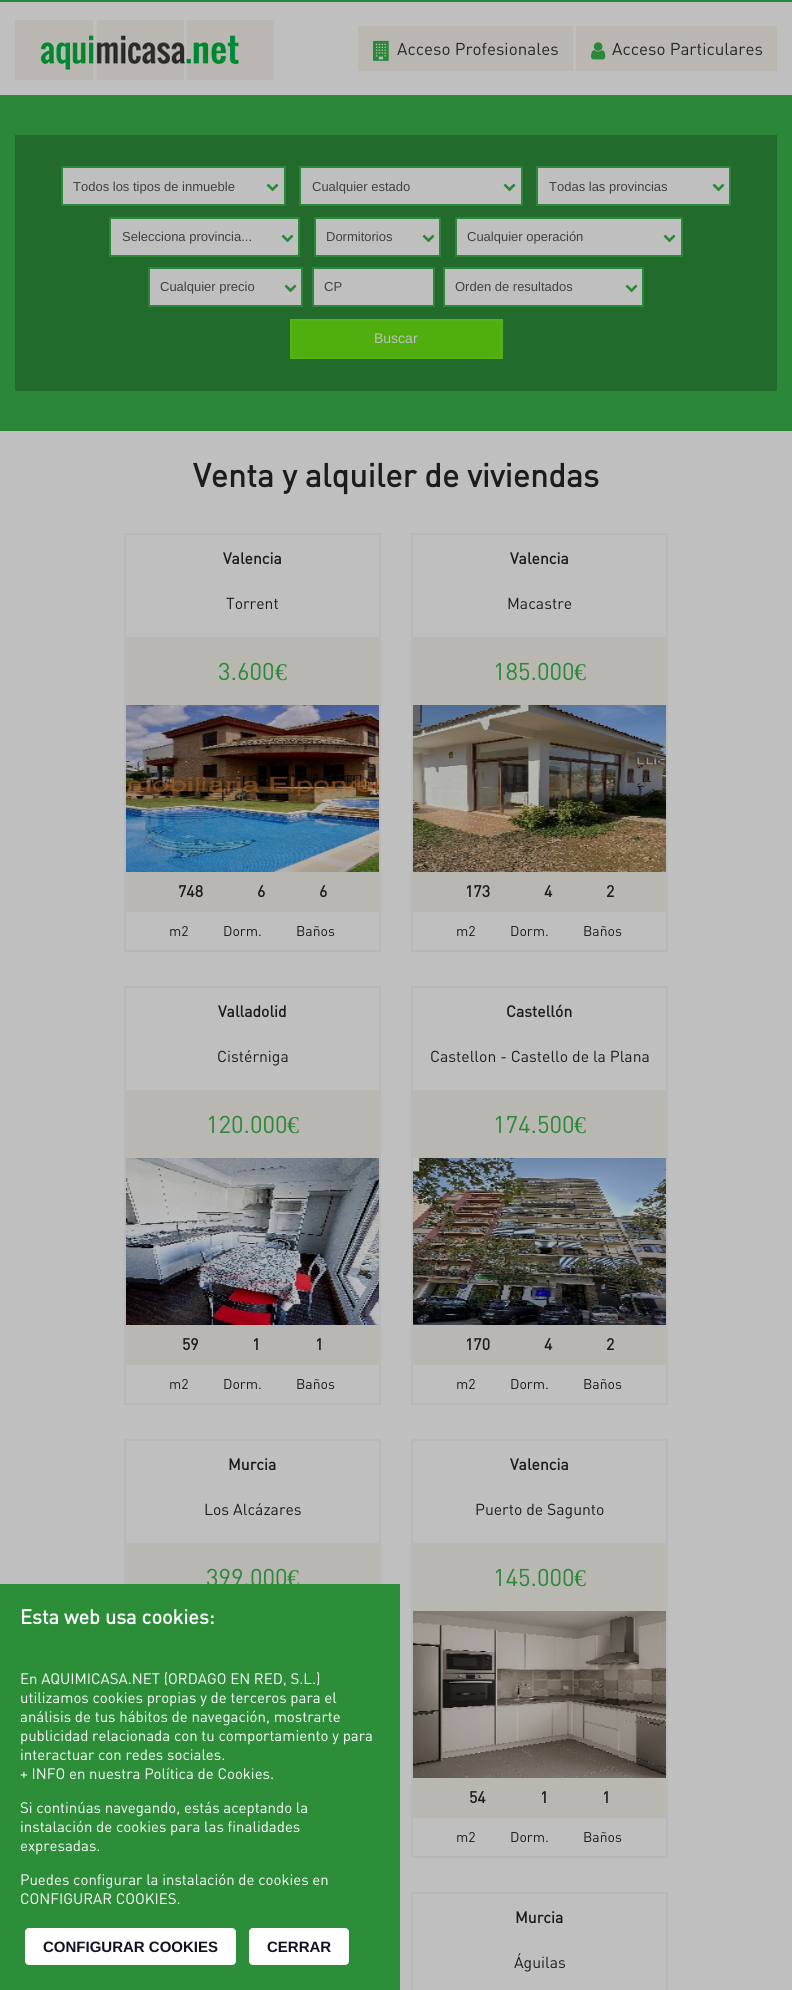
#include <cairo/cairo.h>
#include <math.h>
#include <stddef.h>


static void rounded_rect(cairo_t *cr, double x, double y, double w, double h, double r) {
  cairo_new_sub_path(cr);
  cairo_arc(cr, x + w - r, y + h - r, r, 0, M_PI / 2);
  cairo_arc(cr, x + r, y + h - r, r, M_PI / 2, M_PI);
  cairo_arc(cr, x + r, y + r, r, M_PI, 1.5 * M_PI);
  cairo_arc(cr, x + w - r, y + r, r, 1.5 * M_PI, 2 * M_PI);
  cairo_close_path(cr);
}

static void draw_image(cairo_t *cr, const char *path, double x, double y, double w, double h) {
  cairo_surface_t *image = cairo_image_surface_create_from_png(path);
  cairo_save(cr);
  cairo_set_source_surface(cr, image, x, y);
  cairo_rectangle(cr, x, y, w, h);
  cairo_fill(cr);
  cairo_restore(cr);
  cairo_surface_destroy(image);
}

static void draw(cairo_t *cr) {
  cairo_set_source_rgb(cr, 191 / 255.0, 191 / 255.0, 191 / 255.0);
  cairo_paint(cr);
  cairo_set_source_rgb(cr, 43 / 255.0, 136 / 255.0, 56 / 255.0);
  cairo_rectangle(cr, 0, 0, 792, 2);
  cairo_fill(cr);
  draw_image(cr, "images/1.png", 15, 20, 259, 60);
  cairo_set_source_rgb(cr, 186 / 255.0, 183 / 255.0, 178 / 255.0);
  cairo_rectangle(cr, 358, 26, 215, 45);
  cairo_fill(cr);
  draw_image(cr, "images/2.png", 373, 40, 16, 21);
  cairo_rectangle(cr, 576, 26, 201, 45);
  cairo_fill(cr);
  draw_image(cr, "images/3.png", 591, 42, 15, 18);
  cairo_set_source_rgb(cr, 43 / 255.0, 136 / 255.0, 56 / 255.0);
  cairo_rectangle(cr, 0, 95, 792, 336);
  cairo_fill(cr);
  cairo_set_source_rgb(cr, 34 / 255.0, 107 / 255.0, 44 / 255.0);
  cairo_rectangle(cr, 15, 135, 762, 256);
  cairo_fill(cr);
  cairo_set_source_rgb(cr, 191 / 255.0, 191 / 255.0, 191 / 255.0);
  cairo_rectangle(cr, 62, 167, 223, 38);
  cairo_fill_preserve(cr);
  cairo_set_source_rgb(cr, 43 / 255.0, 136 / 255.0, 56 / 255.0);
  cairo_stroke(cr);
  draw_image(cr, "images/4.png", 266, 183, 13, 9);
  cairo_set_source_rgb(cr, 191 / 255.0, 191 / 255.0, 191 / 255.0);
  cairo_rectangle(cr, 300, 167, 222, 38);
  cairo_fill_preserve(cr);
  cairo_set_source_rgb(cr, 43 / 255.0, 136 / 255.0, 56 / 255.0);
  cairo_stroke(cr);
  draw_image(cr, "images/4.png", 503, 183, 13, 9);
  cairo_set_source_rgb(cr, 191 / 255.0, 191 / 255.0, 191 / 255.0);
  cairo_rectangle(cr, 537, 167, 193, 38);
  cairo_fill_preserve(cr);
  cairo_set_source_rgb(cr, 43 / 255.0, 136 / 255.0, 56 / 255.0);
  cairo_stroke(cr);
  draw_image(cr, "images/4.png", 712, 183, 13, 9);
  cairo_set_source_rgb(cr, 191 / 255.0, 191 / 255.0, 191 / 255.0);
  cairo_rectangle(cr, 110, 218, 189, 38);
  cairo_fill_preserve(cr);
  cairo_set_source_rgb(cr, 43 / 255.0, 136 / 255.0, 56 / 255.0);
  cairo_stroke(cr);
  draw_image(cr, "images/4.png", 281, 234, 13, 9);
  cairo_set_source_rgb(cr, 191 / 255.0, 191 / 255.0, 191 / 255.0);
  cairo_rectangle(cr, 315, 218, 125, 38);
  cairo_fill_preserve(cr);
  cairo_set_source_rgb(cr, 43 / 255.0, 136 / 255.0, 56 / 255.0);
  cairo_stroke(cr);
  draw_image(cr, "images/4.png", 422, 234, 13, 9);
  cairo_set_source_rgb(cr, 191 / 255.0, 191 / 255.0, 191 / 255.0);
  cairo_rectangle(cr, 456, 218, 226, 38);
  cairo_fill_preserve(cr);
  cairo_set_source_rgb(cr, 43 / 255.0, 136 / 255.0, 56 / 255.0);
  cairo_stroke(cr);
  draw_image(cr, "images/4.png", 663, 234, 13, 9);
  cairo_set_source_rgb(cr, 191 / 255.0, 191 / 255.0, 191 / 255.0);
  cairo_rectangle(cr, 149, 268, 153, 38);
  cairo_fill_preserve(cr);
  cairo_set_source_rgb(cr, 43 / 255.0, 136 / 255.0, 56 / 255.0);
  cairo_stroke(cr);
  draw_image(cr, "images/4.png", 284, 284, 13, 9);
  cairo_set_source_rgb(cr, 191 / 255.0, 191 / 255.0, 191 / 255.0);
  cairo_rectangle(cr, 313, 268, 121, 38);
  cairo_fill_preserve(cr);
  cairo_set_source_rgb(cr, 43 / 255.0, 136 / 255.0, 56 / 255.0);
  cairo_stroke(cr);
  cairo_set_source_rgb(cr, 191 / 255.0, 191 / 255.0, 191 / 255.0);
  cairo_rectangle(cr, 444, 268, 199, 38);
  cairo_fill_preserve(cr);
  cairo_set_source_rgb(cr, 43 / 255.0, 136 / 255.0, 56 / 255.0);
  cairo_stroke(cr);
  draw_image(cr, "images/4.png", 625, 284, 13, 9);
  cairo_set_source_rgb(cr, 80 / 255.0, 174 / 255.0, 15 / 255.0);
  cairo_rectangle(cr, 291, 320, 211, 38);
  cairo_fill_preserve(cr);
  cairo_set_source_rgb(cr, 86 / 255.0, 176 / 255.0, 23 / 255.0);
  cairo_stroke(cr);
  cairo_rectangle(cr, 125, 534, 255, 417);
  cairo_set_source_rgb(cr, 184 / 255.0, 184 / 255.0, 184 / 255.0);
  cairo_stroke(cr);
  cairo_set_source_rgb(cr, 185 / 255.0, 183 / 255.0, 178 / 255.0);
  cairo_rectangle(cr, 126, 637, 253, 68);
  cairo_fill(cr);
  draw_image(cr, "images/5.png", 126, 705, 253, 167);
  cairo_rectangle(cr, 126, 872, 253, 40);
  cairo_fill(cr);
  cairo_rectangle(cr, 412, 534, 255, 417);
  cairo_set_source_rgb(cr, 184 / 255.0, 184 / 255.0, 184 / 255.0);
  cairo_stroke(cr);
  cairo_set_source_rgb(cr, 185 / 255.0, 183 / 255.0, 178 / 255.0);
  cairo_rectangle(cr, 413, 637, 253, 68);
  cairo_fill(cr);
  draw_image(cr, "images/6.png", 413, 705, 253, 167);
  cairo_rectangle(cr, 413, 872, 253, 40);
  cairo_fill(cr);
  cairo_rectangle(cr, 125, 987, 255, 417);
  cairo_set_source_rgb(cr, 184 / 255.0, 184 / 255.0, 184 / 255.0);
  cairo_stroke(cr);
  cairo_set_source_rgb(cr, 185 / 255.0, 183 / 255.0, 178 / 255.0);
  cairo_rectangle(cr, 126, 1090, 253, 68);
  cairo_fill(cr);
  draw_image(cr, "images/7.png", 126, 1158, 253, 167);
  cairo_rectangle(cr, 126, 1325, 253, 40);
  cairo_fill(cr);
  cairo_rectangle(cr, 412, 987, 255, 417);
  cairo_set_source_rgb(cr, 184 / 255.0, 184 / 255.0, 184 / 255.0);
  cairo_stroke(cr);
  cairo_set_source_rgb(cr, 185 / 255.0, 183 / 255.0, 178 / 255.0);
  cairo_rectangle(cr, 413, 1090, 253, 68);
  cairo_fill(cr);
  draw_image(cr, "images/8.png", 413, 1158, 253, 167);
  cairo_rectangle(cr, 413, 1325, 253, 40);
  cairo_fill(cr);
  cairo_rectangle(cr, 125, 1440, 255, 417);
  cairo_set_source_rgb(cr, 184 / 255.0, 184 / 255.0, 184 / 255.0);
  cairo_stroke(cr);
  cairo_set_source_rgb(cr, 185 / 255.0, 183 / 255.0, 178 / 255.0);
  cairo_rectangle(cr, 126, 1543, 253, 41);
  cairo_fill(cr);
  cairo_rectangle(cr, 412, 1440, 255, 417);
  cairo_set_source_rgb(cr, 184 / 255.0, 184 / 255.0, 184 / 255.0);
  cairo_stroke(cr);
  cairo_set_source_rgb(cr, 185 / 255.0, 183 / 255.0, 178 / 255.0);
  cairo_rectangle(cr, 413, 1543, 253, 68);
  cairo_fill(cr);
  draw_image(cr, "images/9.png", 413, 1611, 253, 167);
  cairo_rectangle(cr, 413, 1778, 253, 40);
  cairo_fill(cr);
  cairo_rectangle(cr, 412, 1893, 255, 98);
  cairo_set_source_rgb(cr, 184 / 255.0, 184 / 255.0, 184 / 255.0);
  cairo_stroke(cr);
  cairo_select_font_face(cr, "DIN", CAIRO_FONT_SLANT_NORMAL, CAIRO_FONT_WEIGHT_NORMAL);
  cairo_set_font_size(cr, 17);
  cairo_set_source_rgb(cr, 38 / 255.0, 38 / 255.0, 38 / 255.0);
  cairo_move_to(cr, 397, 55);
  cairo_show_text(cr, "Acceso Profesionales");
  cairo_move_to(cr, 612, 55);
  cairo_show_text(cr, "Acceso Particulares");
  cairo_select_font_face(cr, "Liberation Sans", CAIRO_FONT_SLANT_NORMAL, CAIRO_FONT_WEIGHT_NORMAL);
  cairo_set_font_size(cr, 13);
  cairo_set_source_rgb(cr, 66 / 255.0, 65 / 255.0, 65 / 255.0);
  cairo_move_to(cr, 73, 191);
  cairo_show_text(cr, "Todos los tipos de inmueble");
  cairo_move_to(cr, 312, 191);
  cairo_show_text(cr, "Cualquier estado");
  cairo_move_to(cr, 549, 191);
  cairo_show_text(cr, "Todas las provincias");
  cairo_move_to(cr, 122, 241);
  cairo_show_text(cr, "Selecciona provincia...");
  cairo_move_to(cr, 326, 241);
  cairo_show_text(cr, "Dormitorios");
  cairo_move_to(cr, 467, 241);
  cairo_show_text(cr, "Cualquier operación");
  cairo_move_to(cr, 160, 291);
  cairo_show_text(cr, "Cualquier precio");
  cairo_move_to(cr, 324, 291);
  cairo_show_text(cr, "CP");
  cairo_move_to(cr, 455, 291);
  cairo_show_text(cr, "Orden de resultados");
  cairo_set_font_size(cr, 14);
  cairo_set_source_rgb(cr, 191 / 255.0, 191 / 255.0, 191 / 255.0);
  cairo_move_to(cr, 374, 343);
  cairo_show_text(cr, "Buscar");
  cairo_select_font_face(cr, "DIN", CAIRO_FONT_SLANT_NORMAL, CAIRO_FONT_WEIGHT_BOLD);
  cairo_set_font_size(cr, 32.5);
  cairo_set_source_rgb(cr, 28 / 255.0, 28 / 255.0, 28 / 255.0);
  cairo_move_to(cr, 193, 487);
  cairo_show_text(cr, "Venta y alquiler de viviendas");
  cairo_set_font_size(cr, 15.75);
  cairo_move_to(cr, 223, 564);
  cairo_show_text(cr, "Valencia");
  cairo_select_font_face(cr, "DIN", CAIRO_FONT_SLANT_NORMAL, CAIRO_FONT_WEIGHT_NORMAL);
  cairo_move_to(cr, 226, 609);
  cairo_show_text(cr, "Torrent");
  cairo_set_font_size(cr, 24);
  cairo_set_source_rgb(cr, 43 / 255.0, 136 / 255.0, 56 / 255.0);
  cairo_move_to(cr, 218, 680);
  cairo_show_text(cr, "3.600");
  cairo_select_font_face(cr, "Liberation Serif", CAIRO_FONT_SLANT_NORMAL, CAIRO_FONT_WEIGHT_NORMAL);
  cairo_move_to(cr, 275, 680);
  cairo_show_text(cr, "€");
  cairo_select_font_face(cr, "DIN", CAIRO_FONT_SLANT_NORMAL, CAIRO_FONT_WEIGHT_BOLD);
  cairo_set_font_size(cr, 16);
  cairo_set_source_rgb(cr, 28 / 255.0, 28 / 255.0, 28 / 255.0);
  cairo_move_to(cr, 178, 897);
  cairo_show_text(cr, "748");
  cairo_move_to(cr, 257, 897);
  cairo_show_text(cr, "6");
  cairo_move_to(cr, 319, 897);
  cairo_show_text(cr, "6");
  cairo_select_font_face(cr, "DIN", CAIRO_FONT_SLANT_NORMAL, CAIRO_FONT_WEIGHT_NORMAL);
  cairo_set_font_size(cr, 14);
  cairo_move_to(cr, 169, 936);
  cairo_show_text(cr, "m2");
  cairo_move_to(cr, 223, 936);
  cairo_show_text(cr, "Dorm.");
  cairo_move_to(cr, 296, 936);
  cairo_show_text(cr, "Baños");
  cairo_select_font_face(cr, "DIN", CAIRO_FONT_SLANT_NORMAL, CAIRO_FONT_WEIGHT_BOLD);
  cairo_set_font_size(cr, 15.75);
  cairo_move_to(cr, 510, 564);
  cairo_show_text(cr, "Valencia");
  cairo_select_font_face(cr, "DIN", CAIRO_FONT_SLANT_NORMAL, CAIRO_FONT_WEIGHT_NORMAL);
  cairo_move_to(cr, 507, 609);
  cairo_show_text(cr, "Macastre");
  cairo_set_font_size(cr, 24);
  cairo_set_source_rgb(cr, 43 / 255.0, 136 / 255.0, 56 / 255.0);
  cairo_move_to(cr, 493, 680);
  cairo_show_text(cr, "185.000");
  cairo_select_font_face(cr, "Liberation Serif", CAIRO_FONT_SLANT_NORMAL, CAIRO_FONT_WEIGHT_NORMAL);
  cairo_move_to(cr, 574, 680);
  cairo_show_text(cr, "€");
  cairo_select_font_face(cr, "DIN", CAIRO_FONT_SLANT_NORMAL, CAIRO_FONT_WEIGHT_BOLD);
  cairo_set_font_size(cr, 16);
  cairo_set_source_rgb(cr, 28 / 255.0, 28 / 255.0, 28 / 255.0);
  cairo_move_to(cr, 465, 897);
  cairo_show_text(cr, "173");
  cairo_move_to(cr, 544, 897);
  cairo_show_text(cr, "4");
  cairo_move_to(cr, 606, 897);
  cairo_show_text(cr, "2");
  cairo_select_font_face(cr, "DIN", CAIRO_FONT_SLANT_NORMAL, CAIRO_FONT_WEIGHT_NORMAL);
  cairo_set_font_size(cr, 14);
  cairo_move_to(cr, 456, 936);
  cairo_show_text(cr, "m2");
  cairo_move_to(cr, 510, 936);
  cairo_show_text(cr, "Dorm.");
  cairo_move_to(cr, 583, 936);
  cairo_show_text(cr, "Baños");
  cairo_select_font_face(cr, "DIN", CAIRO_FONT_SLANT_NORMAL, CAIRO_FONT_WEIGHT_BOLD);
  cairo_set_font_size(cr, 15.75);
  cairo_move_to(cr, 218, 1017);
  cairo_show_text(cr, "Valladolid");
  cairo_select_font_face(cr, "DIN", CAIRO_FONT_SLANT_NORMAL, CAIRO_FONT_WEIGHT_NORMAL);
  cairo_move_to(cr, 217, 1062);
  cairo_show_text(cr, "Cistérniga");
  cairo_set_font_size(cr, 24);
  cairo_set_source_rgb(cr, 43 / 255.0, 136 / 255.0, 56 / 255.0);
  cairo_move_to(cr, 206, 1133);
  cairo_show_text(cr, "120.000");
  cairo_select_font_face(cr, "Liberation Serif", CAIRO_FONT_SLANT_NORMAL, CAIRO_FONT_WEIGHT_NORMAL);
  cairo_move_to(cr, 287, 1133);
  cairo_show_text(cr, "€");
  cairo_select_font_face(cr, "DIN", CAIRO_FONT_SLANT_NORMAL, CAIRO_FONT_WEIGHT_BOLD);
  cairo_set_font_size(cr, 16);
  cairo_set_source_rgb(cr, 28 / 255.0, 28 / 255.0, 28 / 255.0);
  cairo_move_to(cr, 182, 1350);
  cairo_show_text(cr, "59");
  cairo_move_to(cr, 252, 1350);
  cairo_show_text(cr, "1");
  cairo_move_to(cr, 315, 1350);
  cairo_show_text(cr, "1");
  cairo_select_font_face(cr, "DIN", CAIRO_FONT_SLANT_NORMAL, CAIRO_FONT_WEIGHT_NORMAL);
  cairo_set_font_size(cr, 14);
  cairo_move_to(cr, 169, 1389);
  cairo_show_text(cr, "m2");
  cairo_move_to(cr, 223, 1389);
  cairo_show_text(cr, "Dorm.");
  cairo_move_to(cr, 296, 1389);
  cairo_show_text(cr, "Baños");
  cairo_select_font_face(cr, "DIN", CAIRO_FONT_SLANT_NORMAL, CAIRO_FONT_WEIGHT_BOLD);
  cairo_set_font_size(cr, 15.75);
  cairo_move_to(cr, 506, 1017);
  cairo_show_text(cr, "Castellón");
  cairo_select_font_face(cr, "DIN", CAIRO_FONT_SLANT_NORMAL, CAIRO_FONT_WEIGHT_NORMAL);
  cairo_move_to(cr, 430, 1062);
  cairo_show_text(cr, "Castellon - Castello de la Plana");
  cairo_set_font_size(cr, 24);
  cairo_set_source_rgb(cr, 43 / 255.0, 136 / 255.0, 56 / 255.0);
  cairo_move_to(cr, 493, 1133);
  cairo_show_text(cr, "174.500");
  cairo_select_font_face(cr, "Liberation Serif", CAIRO_FONT_SLANT_NORMAL, CAIRO_FONT_WEIGHT_NORMAL);
  cairo_move_to(cr, 574, 1133);
  cairo_show_text(cr, "€");
  cairo_select_font_face(cr, "DIN", CAIRO_FONT_SLANT_NORMAL, CAIRO_FONT_WEIGHT_BOLD);
  cairo_set_font_size(cr, 16);
  cairo_set_source_rgb(cr, 28 / 255.0, 28 / 255.0, 28 / 255.0);
  cairo_move_to(cr, 465, 1350);
  cairo_show_text(cr, "170");
  cairo_move_to(cr, 544, 1350);
  cairo_show_text(cr, "4");
  cairo_move_to(cr, 606, 1350);
  cairo_show_text(cr, "2");
  cairo_select_font_face(cr, "DIN", CAIRO_FONT_SLANT_NORMAL, CAIRO_FONT_WEIGHT_NORMAL);
  cairo_set_font_size(cr, 14);
  cairo_move_to(cr, 456, 1389);
  cairo_show_text(cr, "m2");
  cairo_move_to(cr, 510, 1389);
  cairo_show_text(cr, "Dorm.");
  cairo_move_to(cr, 583, 1389);
  cairo_show_text(cr, "Baños");
  cairo_select_font_face(cr, "DIN", CAIRO_FONT_SLANT_NORMAL, CAIRO_FONT_WEIGHT_BOLD);
  cairo_set_font_size(cr, 15.75);
  cairo_move_to(cr, 228, 1470);
  cairo_show_text(cr, "Murcia");
  cairo_select_font_face(cr, "DIN", CAIRO_FONT_SLANT_NORMAL, CAIRO_FONT_WEIGHT_NORMAL);
  cairo_move_to(cr, 204, 1515);
  cairo_show_text(cr, "Los Alcázares");
  cairo_set_font_size(cr, 24);
  cairo_set_source_rgb(cr, 43 / 255.0, 136 / 255.0, 56 / 255.0);
  cairo_move_to(cr, 206, 1586);
  cairo_show_text(cr, "399.000");
  cairo_select_font_face(cr, "Liberation Serif", CAIRO_FONT_SLANT_NORMAL, CAIRO_FONT_WEIGHT_NORMAL);
  cairo_move_to(cr, 287, 1586);
  cairo_show_text(cr, "€");
  cairo_select_font_face(cr, "DIN", CAIRO_FONT_SLANT_NORMAL, CAIRO_FONT_WEIGHT_BOLD);
  cairo_set_font_size(cr, 15.75);
  cairo_set_source_rgb(cr, 28 / 255.0, 28 / 255.0, 28 / 255.0);
  cairo_move_to(cr, 510, 1470);
  cairo_show_text(cr, "Valencia");
  cairo_select_font_face(cr, "DIN", CAIRO_FONT_SLANT_NORMAL, CAIRO_FONT_WEIGHT_NORMAL);
  cairo_move_to(cr, 475, 1515);
  cairo_show_text(cr, "Puerto de Sagunto");
  cairo_set_font_size(cr, 24);
  cairo_set_source_rgb(cr, 43 / 255.0, 136 / 255.0, 56 / 255.0);
  cairo_move_to(cr, 493, 1586);
  cairo_show_text(cr, "145.000");
  cairo_select_font_face(cr, "Liberation Serif", CAIRO_FONT_SLANT_NORMAL, CAIRO_FONT_WEIGHT_NORMAL);
  cairo_move_to(cr, 574, 1586);
  cairo_show_text(cr, "€");
  cairo_select_font_face(cr, "DIN", CAIRO_FONT_SLANT_NORMAL, CAIRO_FONT_WEIGHT_BOLD);
  cairo_set_font_size(cr, 16);
  cairo_set_source_rgb(cr, 28 / 255.0, 28 / 255.0, 28 / 255.0);
  cairo_move_to(cr, 469, 1803);
  cairo_show_text(cr, "54");
  cairo_move_to(cr, 540, 1803);
  cairo_show_text(cr, "1");
  cairo_move_to(cr, 602, 1803);
  cairo_show_text(cr, "1");
  cairo_select_font_face(cr, "DIN", CAIRO_FONT_SLANT_NORMAL, CAIRO_FONT_WEIGHT_NORMAL);
  cairo_set_font_size(cr, 14);
  cairo_move_to(cr, 456, 1842);
  cairo_show_text(cr, "m2");
  cairo_move_to(cr, 510, 1842);
  cairo_show_text(cr, "Dorm.");
  cairo_move_to(cr, 583, 1842);
  cairo_show_text(cr, "Baños");
  cairo_select_font_face(cr, "DIN", CAIRO_FONT_SLANT_NORMAL, CAIRO_FONT_WEIGHT_BOLD);
  cairo_set_font_size(cr, 15.75);
  cairo_move_to(cr, 515, 1923);
  cairo_show_text(cr, "Murcia");
  cairo_select_font_face(cr, "DIN", CAIRO_FONT_SLANT_NORMAL, CAIRO_FONT_WEIGHT_NORMAL);
  cairo_move_to(cr, 514, 1968);
  cairo_show_text(cr, "Águilas");
  cairo_set_source_rgb(cr, 45 / 255.0, 142 / 255.0, 58 / 255.0);
  cairo_rectangle(cr, 0, 1584, 400, 406);
  cairo_fill(cr);
  cairo_select_font_face(cr, "DIN", CAIRO_FONT_SLANT_NORMAL, CAIRO_FONT_WEIGHT_BOLD);
  cairo_set_font_size(cr, 20);
  cairo_set_source_rgb(cr, 1, 1, 1);
  cairo_move_to(cr, 20, 1624);
  cairo_show_text(cr, "Esta web usa cookies:");
  cairo_select_font_face(cr, "DIN", CAIRO_FONT_SLANT_NORMAL, CAIRO_FONT_WEIGHT_NORMAL);
  cairo_set_font_size(cr, 15);
  cairo_move_to(cr, 20, 1684);
  cairo_show_text(cr, "En AQUIMICASA.NET (ORDAGO EN RED, S.L.)");
  cairo_move_to(cr, 20, 1703);
  cairo_show_text(cr, "utilizamos cookies propias y de terceros para el");
  cairo_move_to(cr, 20, 1722);
  cairo_show_text(cr, "análisis de tus hábitos de navegación, mostrarte");
  cairo_move_to(cr, 20, 1741);
  cairo_show_text(cr, "publicidad relacionada con tu comportamiento y para");
  cairo_move_to(cr, 20, 1760);
  cairo_show_text(cr, "interactuar con redes sociales.");
  cairo_move_to(cr, 20, 1779);
  cairo_show_text(cr, "+ INFO en nuestra Política de Cookies.");
  cairo_move_to(cr, 20, 1813);
  cairo_show_text(cr, "Si continúas navegando, estás aceptando la");
  cairo_move_to(cr, 20, 1832);
  cairo_show_text(cr, "instalación de cookies para las finalidades");
  cairo_move_to(cr, 20, 1851);
  cairo_show_text(cr, "expresadas.");
  cairo_move_to(cr, 20, 1885);
  cairo_show_text(cr, "Puedes configurar la instalación de cookies en");
  cairo_move_to(cr, 20, 1904);
  cairo_show_text(cr, "CONFIGURAR COOKIES.");
  rounded_rect(cr, 26, 1929, 209, 35, 3);
  cairo_fill_preserve(cr);
  cairo_stroke(cr);
  cairo_select_font_face(cr, "Liberation Sans", CAIRO_FONT_SLANT_NORMAL, CAIRO_FONT_WEIGHT_BOLD);
  cairo_set_source_rgb(cr, 17 / 255.0, 17 / 255.0, 37 / 255.0);
  cairo_move_to(cr, 43, 1952);
  cairo_show_text(cr, "CONFIGURAR COOKIES");
  cairo_set_source_rgb(cr, 1, 1, 1);
  rounded_rect(cr, 250, 1929, 98, 35, 3);
  cairo_fill_preserve(cr);
  cairo_stroke(cr);
  cairo_set_source_rgb(cr, 17 / 255.0, 17 / 255.0, 37 / 255.0);
  cairo_move_to(cr, 267, 1952);
  cairo_show_text(cr, "CERRAR");
}

int main(void) {
  cairo_surface_t *surface = cairo_image_surface_create(CAIRO_FORMAT_RGB24, 792, 1990);
  cairo_t *cr = cairo_create(surface);
  cairo_font_options_t *options = cairo_font_options_create();
  cairo_font_options_set_hint_metrics(options, CAIRO_HINT_METRICS_OFF);
  cairo_font_options_set_hint_style(options, CAIRO_HINT_STYLE_NONE);
  cairo_set_font_options(cr, options);
  cairo_set_miter_limit(cr, 4);
  draw(cr);
  cairo_surface_write_to_png(surface, "out.png");
  cairo_font_options_destroy(options);
  cairo_destroy(cr);
  cairo_surface_destroy(surface);
  return 0;
}
